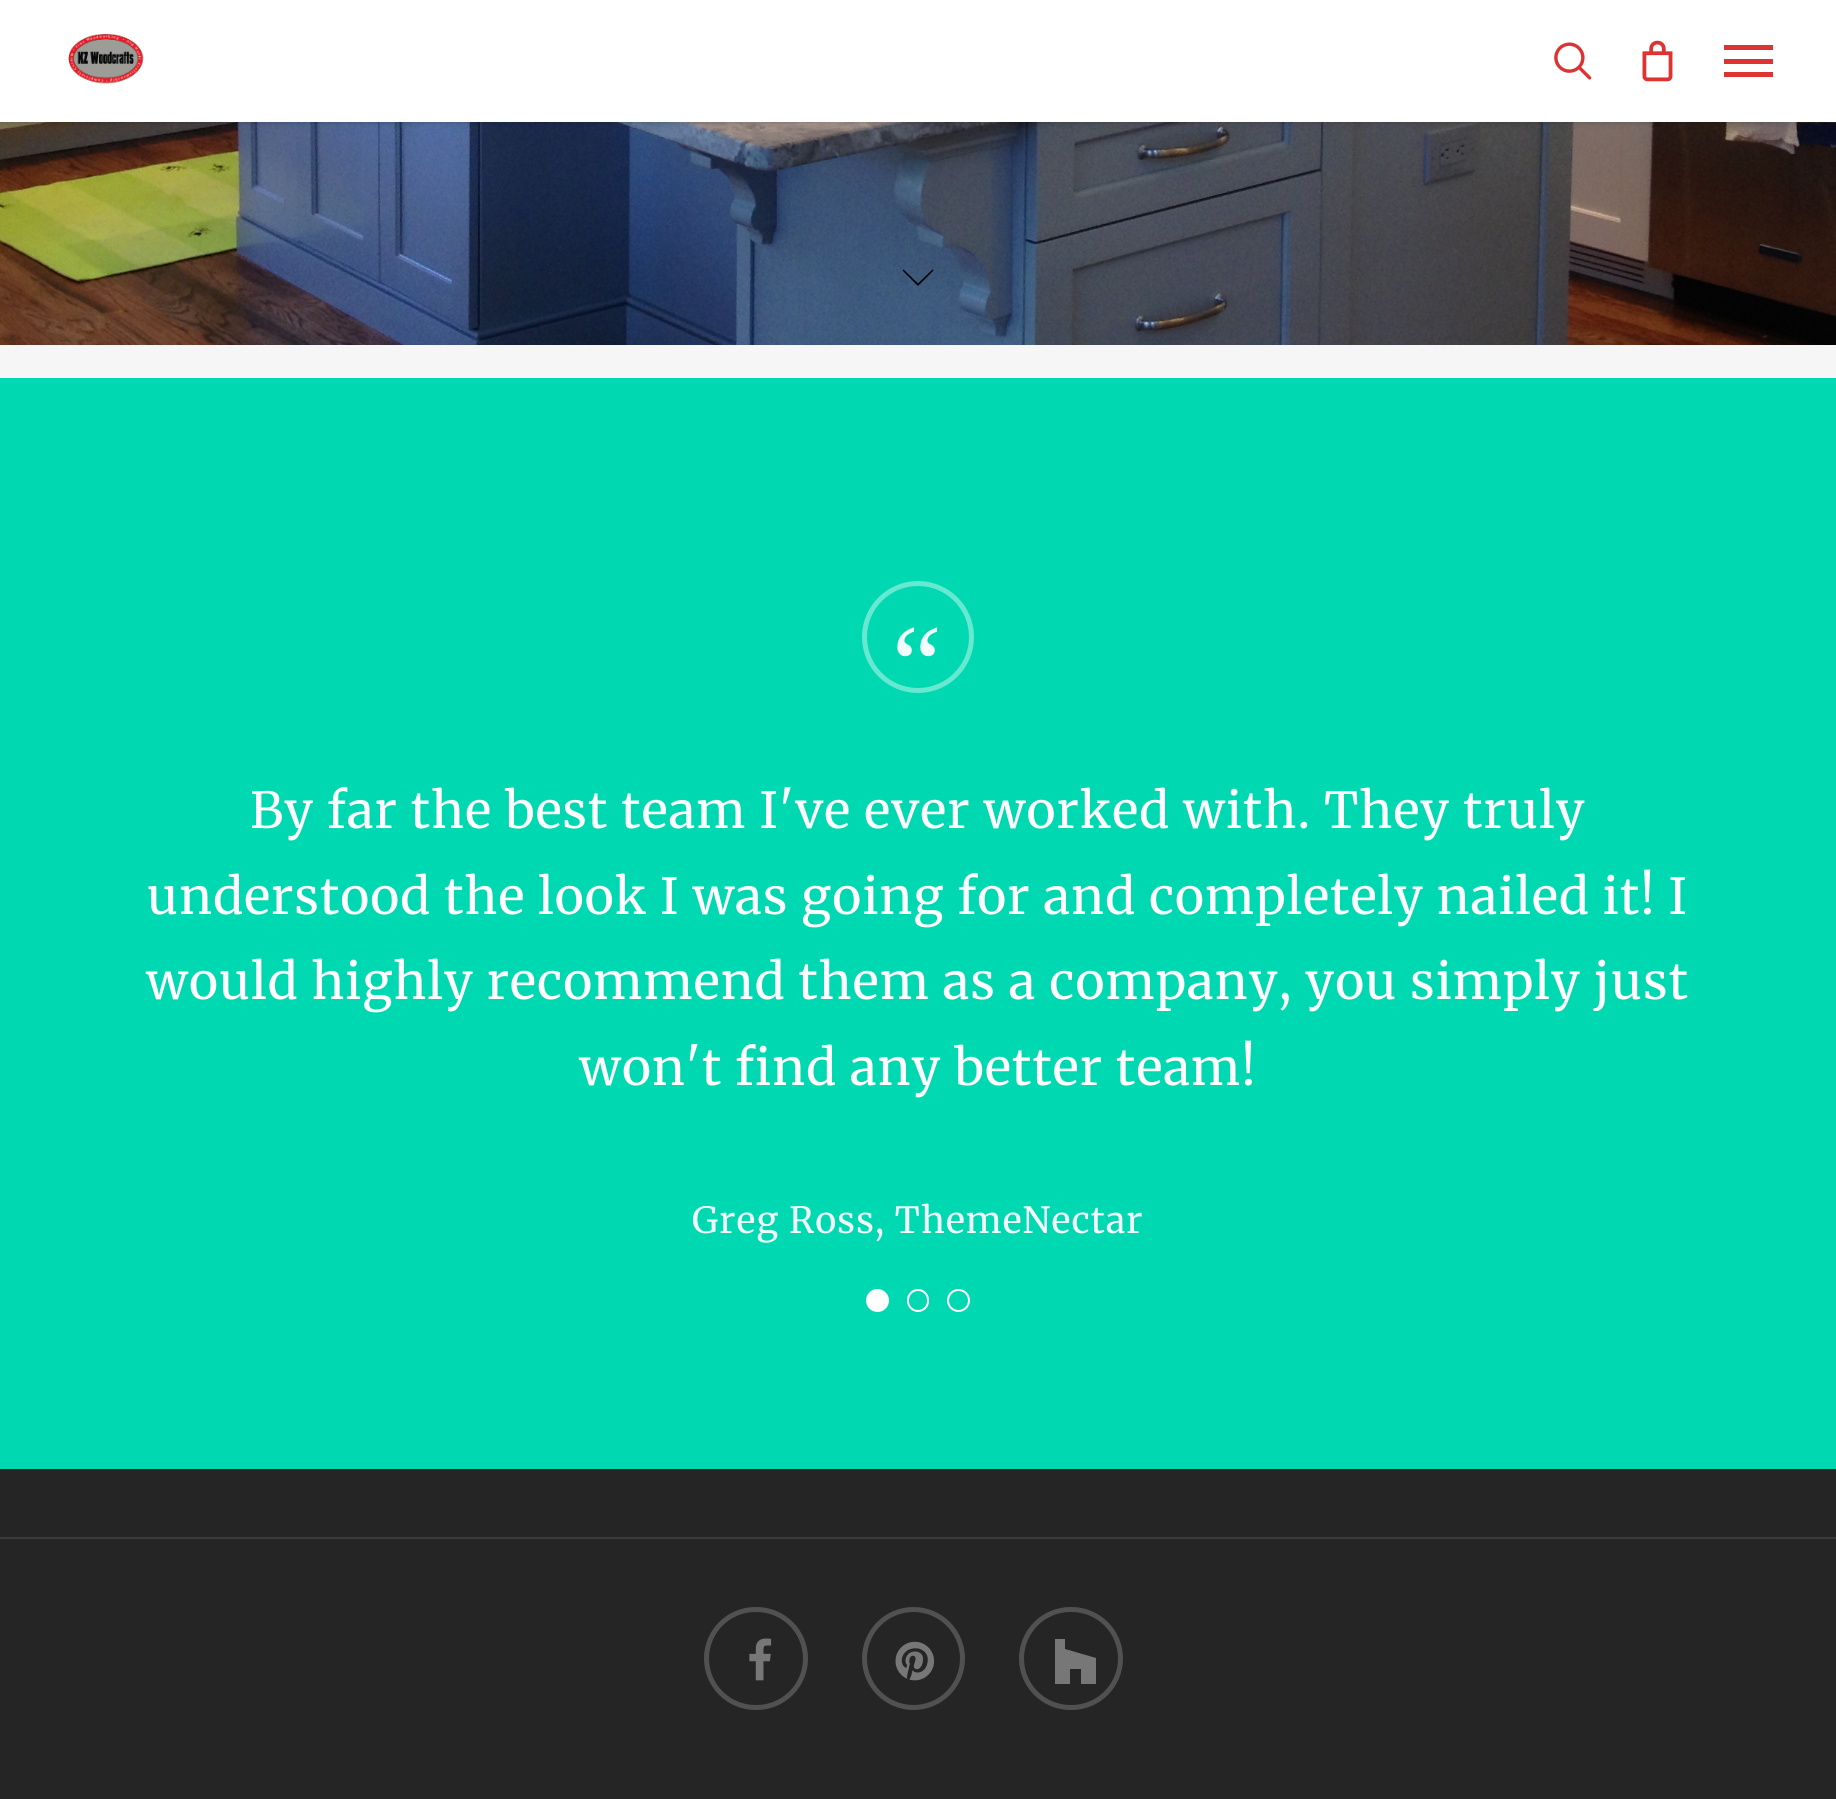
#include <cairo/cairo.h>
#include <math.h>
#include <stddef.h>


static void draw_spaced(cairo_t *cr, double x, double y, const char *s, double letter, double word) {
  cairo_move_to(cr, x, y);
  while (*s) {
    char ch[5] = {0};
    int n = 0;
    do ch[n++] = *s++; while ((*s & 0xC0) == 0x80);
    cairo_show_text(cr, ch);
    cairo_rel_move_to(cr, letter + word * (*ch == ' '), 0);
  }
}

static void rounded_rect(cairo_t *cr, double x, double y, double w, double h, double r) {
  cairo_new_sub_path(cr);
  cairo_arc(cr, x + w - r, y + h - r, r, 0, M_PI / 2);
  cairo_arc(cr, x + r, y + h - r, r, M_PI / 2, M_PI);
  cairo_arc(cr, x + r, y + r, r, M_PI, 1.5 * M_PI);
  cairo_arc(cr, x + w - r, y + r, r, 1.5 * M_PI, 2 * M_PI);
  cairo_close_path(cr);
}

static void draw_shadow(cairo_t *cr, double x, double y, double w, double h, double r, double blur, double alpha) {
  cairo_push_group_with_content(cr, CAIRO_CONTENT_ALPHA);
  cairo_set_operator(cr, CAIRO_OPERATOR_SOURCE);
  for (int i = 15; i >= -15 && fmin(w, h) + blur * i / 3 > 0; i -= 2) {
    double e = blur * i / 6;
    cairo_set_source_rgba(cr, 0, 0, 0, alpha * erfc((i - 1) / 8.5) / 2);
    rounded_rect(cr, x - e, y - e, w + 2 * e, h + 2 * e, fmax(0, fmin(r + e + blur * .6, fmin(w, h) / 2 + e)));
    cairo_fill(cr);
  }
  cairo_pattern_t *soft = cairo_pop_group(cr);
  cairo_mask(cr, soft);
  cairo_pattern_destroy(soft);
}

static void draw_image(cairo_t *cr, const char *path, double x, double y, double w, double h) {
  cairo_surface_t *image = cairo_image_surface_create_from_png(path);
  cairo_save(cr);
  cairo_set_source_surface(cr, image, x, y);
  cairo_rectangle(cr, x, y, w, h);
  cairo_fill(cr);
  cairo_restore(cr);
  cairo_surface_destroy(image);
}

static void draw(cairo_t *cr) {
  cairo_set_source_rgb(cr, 37 / 255.0, 37 / 255.0, 37 / 255.0);
  cairo_paint(cr);
  draw_image(cr, "images/4.png", 0, 122, 1836, 223);
  cairo_set_source_rgb(cr, 0, 0, 0);
  draw_shadow(cr, 0, 0, 1836, 122, 0, 3.5, 0.22);
  cairo_set_source_rgb(cr, 1, 1, 1);
  cairo_rectangle(cr, 0, 0, 1836, 122);
  cairo_fill(cr);
  draw_image(cr, "images/1.png", 68, 33, 76, 51);
  draw_image(cr, "images/2.png", 1554, 42, 38, 38);
  draw_image(cr, "images/3.png", 1642, 40, 31, 42);
  cairo_set_source_rgb(cr, 221 / 255.0, 51 / 255.0, 51 / 255.0);
  cairo_rectangle(cr, 1724, 45, 49, 5);
  cairo_fill(cr);
  cairo_rectangle(cr, 1724, 72, 49, 5);
  cairo_fill(cr);
  cairo_rectangle(cr, 1724, 59, 49, 5);
  cairo_fill(cr);
  cairo_set_source_rgb(cr, 246 / 255.0, 246 / 255.0, 246 / 255.0);
  cairo_rectangle(cr, 0, 345, 1836, 33);
  cairo_fill(cr);
  cairo_set_source_rgb(cr, 0, 0, 0);
  cairo_new_path(cr);
  cairo_move_to(cr, 932.5, 269.5);
  cairo_line_to(cr, 933.5, 270.5);
  cairo_line_to(cr, 918, 286);
  cairo_line_to(cr, 902.5, 270.5);
  cairo_line_to(cr, 903.5, 269.5);
  cairo_line_to(cr, 918, 283.5);
  cairo_close_path(cr);
  cairo_fill(cr);
  cairo_set_source_rgb(cr, 0, 216 / 255.0, 178 / 255.0);
  cairo_rectangle(cr, 0, 378, 1836, 1091);
  cairo_fill(cr);
  cairo_arc(cr, 918, 637, 53.5, 0, 2 * M_PI);
  cairo_set_source_rgb(cr, 102 / 255.0, 232 / 255.0, 209 / 255.0);
  cairo_set_line_width(cr, 5);
  cairo_stroke(cr);
  cairo_set_source_rgb(cr, 1, 1, 1);
  cairo_arc(cr, 877.5, 1300.5, 10.5, 0, 2 * M_PI);
  cairo_fill_preserve(cr);
  cairo_set_line_width(cr, 2);
  cairo_stroke(cr);
  rounded_rect(cr, 908, 1290, 20, 21, 10);
  cairo_stroke(cr);
  cairo_arc(cr, 958.5, 1300.5, 10.5, 0, 2 * M_PI);
  cairo_stroke(cr);
  cairo_set_source_rgb(cr, 59 / 255.0, 59 / 255.0, 59 / 255.0);
  cairo_rectangle(cr, 0, 1537, 1836, 2);
  cairo_fill(cr);
  draw_image(cr, "images/5.png", 749, 1638, 23, 43);
  rounded_rect(cr, 706.5, 1609.5, 99, 98, 49);
  cairo_set_source_rgb(cr, 81 / 255.0, 81 / 255.0, 81 / 255.0);
  cairo_set_line_width(cr, 5);
  cairo_stroke(cr);
  draw_image(cr, "images/6.png", 895, 1641, 40, 40);
  cairo_arc(cr, 913.5, 1658.5, 49, 0, 2 * M_PI);
  cairo_stroke(cr);
  cairo_set_source_rgb(cr, 119 / 255.0, 119 / 255.0, 119 / 255.0);
  cairo_new_path(cr);
  cairo_move_to(cr, 1055, 1639);
  cairo_line_to(cr, 1055, 1684);
  cairo_line_to(cr, 1070, 1684);
  cairo_line_to(cr, 1070, 1669);
  cairo_line_to(cr, 1081, 1669);
  cairo_line_to(cr, 1081, 1684);
  cairo_line_to(cr, 1096, 1684);
  cairo_line_to(cr, 1096, 1658);
  cairo_line_to(cr, 1065, 1649);
  cairo_line_to(cr, 1065, 1639);
  cairo_close_path(cr);
  cairo_fill(cr);
  rounded_rect(cr, 1021.5, 1609.5, 99, 98, 49);
  cairo_set_source_rgb(cr, 81 / 255.0, 81 / 255.0, 81 / 255.0);
  cairo_stroke(cr);
  cairo_select_font_face(cr, "Liberation Serif", CAIRO_FONT_SLANT_NORMAL, CAIRO_FONT_WEIGHT_NORMAL);
  cairo_set_font_size(cr, 112);
  cairo_set_source_rgb(cr, 242 / 255.0, 253 / 255.0, 251 / 255.0);
  draw_spaced(cr, 892, 702, "“", 1.12, 0);
  cairo_select_font_face(cr, "Merriweather Light", CAIRO_FONT_SLANT_NORMAL, CAIRO_FONT_WEIGHT_NORMAL);
  cairo_set_font_size(cr, 49.5);
  cairo_set_source_rgb(cr, 1, 1, 1);
  draw_spaced(cr, 250, 828, "By far the best team I've ever worked with. They truly", 1.12, 0);
  draw_spaced(cr, 147, 914, "understood the look I was going for and completely nailed it! I", 1.12, 0);
  draw_spaced(cr, 146, 999, "would highly recommend them as a company, you simply just", 1.12, 0);
  draw_spaced(cr, 579, 1085, "won't find any better team!", 1.12, 0);
  cairo_set_font_size(cr, 36);
  cairo_set_source_rgb(cr, 242 / 255.0, 253 / 255.0, 251 / 255.0);
  draw_spaced(cr, 692, 1233, "Greg Ross, ThemeNectar", 1.12, 0);
}

int main(void) {
  cairo_surface_t *surface = cairo_image_surface_create(CAIRO_FORMAT_RGB24, 1836, 1799);
  cairo_t *cr = cairo_create(surface);
  cairo_font_options_t *options = cairo_font_options_create();
  cairo_font_options_set_hint_metrics(options, CAIRO_HINT_METRICS_OFF);
  cairo_font_options_set_hint_style(options, CAIRO_HINT_STYLE_NONE);
  cairo_set_font_options(cr, options);
  cairo_set_miter_limit(cr, 4);
  draw(cr);
  cairo_surface_write_to_png(surface, "out.png");
  cairo_font_options_destroy(options);
  cairo_destroy(cr);
  cairo_surface_destroy(surface);
  return 0;
}
